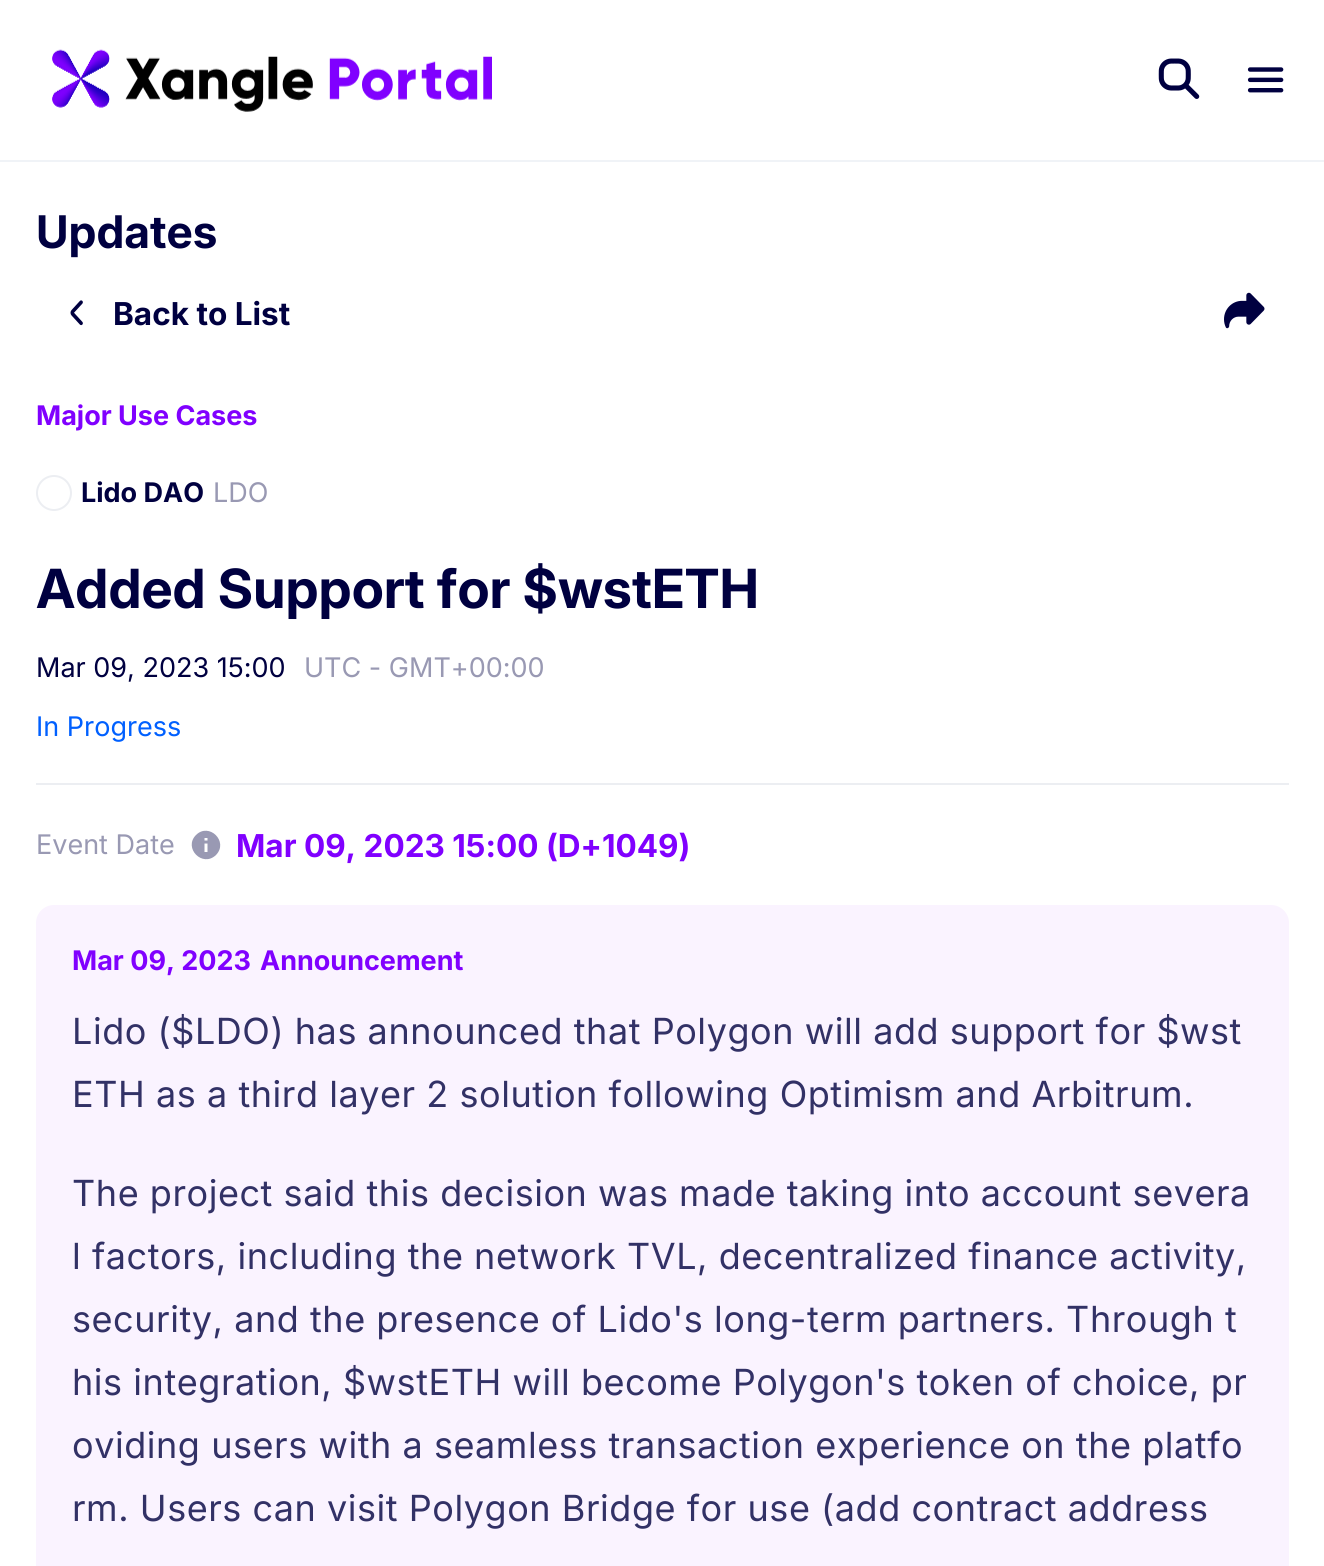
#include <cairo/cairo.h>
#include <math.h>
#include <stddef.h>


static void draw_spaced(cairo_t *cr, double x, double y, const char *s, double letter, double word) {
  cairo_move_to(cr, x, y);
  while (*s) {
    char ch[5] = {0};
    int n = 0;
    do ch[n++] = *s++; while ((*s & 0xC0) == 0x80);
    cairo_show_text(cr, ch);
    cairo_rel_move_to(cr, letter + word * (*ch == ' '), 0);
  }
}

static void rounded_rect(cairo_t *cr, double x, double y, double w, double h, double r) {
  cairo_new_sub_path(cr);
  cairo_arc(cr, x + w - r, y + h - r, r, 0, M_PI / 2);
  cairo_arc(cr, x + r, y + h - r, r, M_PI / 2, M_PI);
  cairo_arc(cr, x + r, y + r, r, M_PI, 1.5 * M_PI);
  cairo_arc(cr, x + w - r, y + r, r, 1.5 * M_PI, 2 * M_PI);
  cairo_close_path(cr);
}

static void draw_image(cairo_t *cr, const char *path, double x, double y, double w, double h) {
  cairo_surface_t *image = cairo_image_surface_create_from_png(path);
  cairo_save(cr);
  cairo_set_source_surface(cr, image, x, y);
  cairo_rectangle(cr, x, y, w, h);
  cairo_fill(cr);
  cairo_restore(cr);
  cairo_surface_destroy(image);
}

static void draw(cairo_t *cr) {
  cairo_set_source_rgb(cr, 1, 1, 1);
  cairo_paint(cr);
  cairo_set_source_rgb(cr, 240 / 255.0, 243 / 255.0, 247 / 255.0);
  cairo_rectangle(cr, 0, 160, 1324, 2);
  cairo_fill(cr);
  draw_image(cr, "images/1.png", 52, 49, 440, 63);
  draw_image(cr, "images/2.png", 1158, 58, 42, 41);
  draw_image(cr, "images/3.png", 1247, 67, 37, 26);
  draw_image(cr, "images/4.png", 70, 300, 13, 26);
  draw_image(cr, "images/5.png", 1224, 292, 41, 37);
  cairo_arc(cr, 54, 493, 17, 0, 2 * M_PI);
  cairo_set_source_rgb(cr, 236 / 255.0, 238 / 255.0, 242 / 255.0);
  cairo_stroke(cr);
  cairo_rectangle(cr, 36, 783, 1253, 2);
  cairo_fill(cr);
  cairo_set_source_rgb(cr, 153 / 255.0, 153 / 255.0, 179 / 255.0);
  cairo_new_path(cr);
  cairo_move_to(cr, 207.5, 840.5);
  cairo_line_to(cr, 207.5, 838);
  cairo_line_to(cr, 204.5, 838);
  cairo_line_to(cr, 204.5, 840.5);
  cairo_close_path(cr);
  cairo_move_to(cr, 207.5, 852);
  cairo_line_to(cr, 207.5, 843.5);
  cairo_line_to(cr, 204.5, 843.5);
  cairo_line_to(cr, 204.5, 852);
  cairo_close_path(cr);
  cairo_move_to(cr, 196, 835);
  cairo_curve_to(cr, 209, 822, 229, 841.5, 216, 855);
  cairo_curve_to(cr, 202.5, 868, 183, 848, 196, 835);
  cairo_close_path(cr);
  cairo_fill(cr);
  cairo_set_source_rgb(cr, 250 / 255.0, 243 / 255.0, 1);
  rounded_rect(cr, 36, 905, 1253, 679, 18);
  cairo_fill(cr);
  cairo_select_font_face(cr, "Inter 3", CAIRO_FONT_SLANT_NORMAL, CAIRO_FONT_WEIGHT_BOLD);
  cairo_set_font_size(cr, 45);
  cairo_set_source_rgb(cr, 0, 0, 64 / 255.0);
  cairo_move_to(cr, 36, 248);
  cairo_show_text(cr, "Updates");
  cairo_select_font_face(cr, "Inter", CAIRO_FONT_SLANT_NORMAL, CAIRO_FONT_WEIGHT_BOLD);
  cairo_set_font_size(cr, 31.5);
  cairo_move_to(cr, 113, 325);
  cairo_show_text(cr, "Back to List");
  cairo_set_font_size(cr, 27);
  cairo_set_source_rgb(cr, 128 / 255.0, 0, 1);
  cairo_move_to(cr, 36, 425);
  cairo_show_text(cr, "Major Use Cases");
  cairo_set_source_rgb(cr, 0, 0, 64 / 255.0);
  cairo_move_to(cr, 81, 502);
  cairo_show_text(cr, "Lido DAO");
  cairo_select_font_face(cr, "Inter", CAIRO_FONT_SLANT_NORMAL, CAIRO_FONT_WEIGHT_NORMAL);
  cairo_set_source_rgb(cr, 153 / 255.0, 153 / 255.0, 179 / 255.0);
  cairo_move_to(cr, 213, 502);
  cairo_show_text(cr, "LDO");
  cairo_select_font_face(cr, "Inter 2", CAIRO_FONT_SLANT_NORMAL, CAIRO_FONT_WEIGHT_BOLD);
  cairo_set_font_size(cr, 54);
  cairo_set_source_rgb(cr, 0, 0, 64 / 255.0);
  cairo_move_to(cr, 36, 608);
  cairo_show_text(cr, "Added Support for $wstETH");
  cairo_select_font_face(cr, "Inter", CAIRO_FONT_SLANT_NORMAL, CAIRO_FONT_WEIGHT_NORMAL);
  cairo_set_font_size(cr, 27);
  cairo_move_to(cr, 36, 677);
  cairo_show_text(cr, "Mar 09, 2023 15:00");
  cairo_set_source_rgb(cr, 153 / 255.0, 153 / 255.0, 179 / 255.0);
  cairo_move_to(cr, 304, 677);
  cairo_show_text(cr, "UTC - GMT+00:00");
  cairo_set_source_rgb(cr, 0, 96 / 255.0, 1);
  cairo_move_to(cr, 36, 736);
  cairo_show_text(cr, "In Progress");
  cairo_set_source_rgb(cr, 153 / 255.0, 153 / 255.0, 179 / 255.0);
  cairo_move_to(cr, 36, 854);
  cairo_show_text(cr, "Event Date");
  cairo_select_font_face(cr, "Inter", CAIRO_FONT_SLANT_NORMAL, CAIRO_FONT_WEIGHT_BOLD);
  cairo_set_font_size(cr, 31.5);
  cairo_set_source_rgb(cr, 128 / 255.0, 0, 1);
  cairo_move_to(cr, 236, 857);
  cairo_show_text(cr, "Mar 09, 2023 15:00 (D+1049)");
  cairo_set_font_size(cr, 27);
  cairo_move_to(cr, 72, 970);
  cairo_show_text(cr, "Mar 09, 2023");
  cairo_move_to(cr, 260, 970);
  cairo_show_text(cr, "Announcement");
  cairo_select_font_face(cr, "Inter", CAIRO_FONT_SLANT_NORMAL, CAIRO_FONT_WEIGHT_NORMAL);
  cairo_set_font_size(cr, 36);
  cairo_set_source_rgb(cr, 50 / 255.0, 49 / 255.0, 102 / 255.0);
  draw_spaced(cr, 72, 1044, "Lido ($LDO) has announced that Polygon will add support for $wst", 0.55, 0);
  draw_spaced(cr, 72, 1107, "ETH as a third layer 2 solution following Optimism and Arbitrum.", 0.55, 0);
  draw_spaced(cr, 72, 1206, "The project said this decision was made taking into account severa", 0.55, 0);
  draw_spaced(cr, 72, 1269, "l factors, including the network TVL, decentralized finance activity,", 0.55, 0);
  draw_spaced(cr, 72, 1332, "security, and the presence of Lido's long-term partners. Through t", 0.55, 0);
  draw_spaced(cr, 72, 1395, "his integration, $wstETH will become Polygon's token of choice, pr", 0.55, 0);
  draw_spaced(cr, 72, 1458, "oviding users with a seamless transaction experience on the platfo", 0.55, 0);
  draw_spaced(cr, 72, 1521, "rm. Users can visit Polygon Bridge for use (add contract address", 0.55, 0);
}

int main(void) {
  cairo_surface_t *surface = cairo_image_surface_create(CAIRO_FORMAT_RGB24, 1324, 1566);
  cairo_t *cr = cairo_create(surface);
  cairo_font_options_t *options = cairo_font_options_create();
  cairo_font_options_set_hint_metrics(options, CAIRO_HINT_METRICS_OFF);
  cairo_font_options_set_hint_style(options, CAIRO_HINT_STYLE_NONE);
  cairo_set_font_options(cr, options);
  cairo_set_miter_limit(cr, 4);
  draw(cr);
  cairo_surface_write_to_png(surface, "out.png");
  cairo_font_options_destroy(options);
  cairo_destroy(cr);
  cairo_surface_destroy(surface);
  return 0;
}
